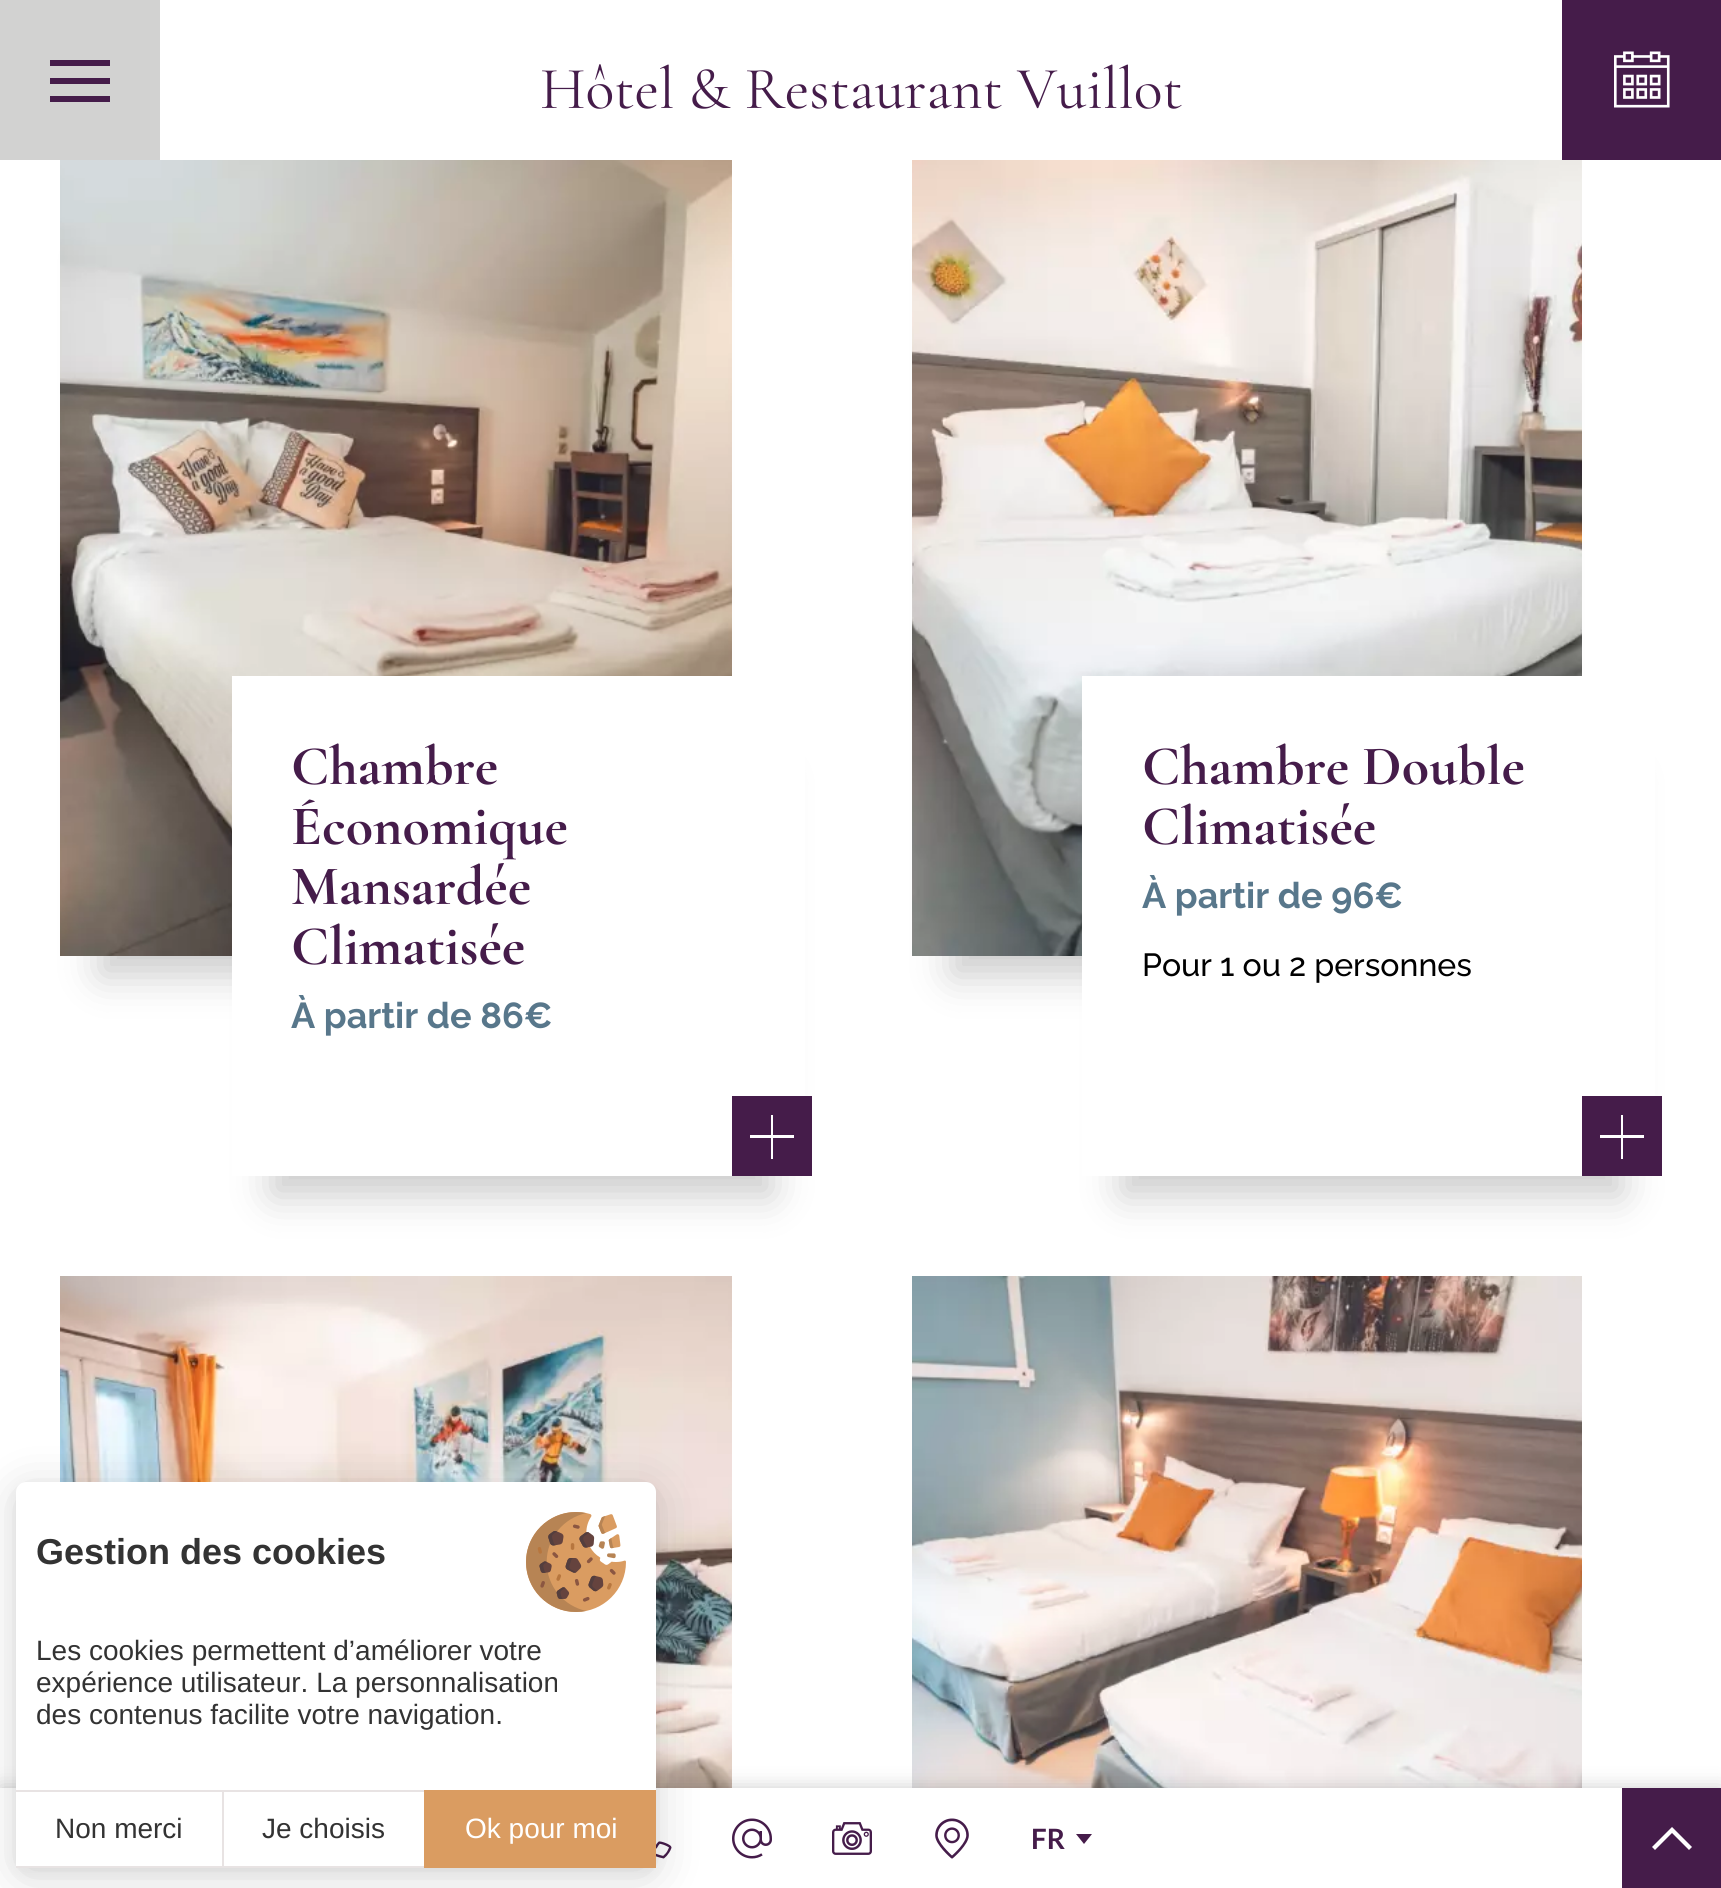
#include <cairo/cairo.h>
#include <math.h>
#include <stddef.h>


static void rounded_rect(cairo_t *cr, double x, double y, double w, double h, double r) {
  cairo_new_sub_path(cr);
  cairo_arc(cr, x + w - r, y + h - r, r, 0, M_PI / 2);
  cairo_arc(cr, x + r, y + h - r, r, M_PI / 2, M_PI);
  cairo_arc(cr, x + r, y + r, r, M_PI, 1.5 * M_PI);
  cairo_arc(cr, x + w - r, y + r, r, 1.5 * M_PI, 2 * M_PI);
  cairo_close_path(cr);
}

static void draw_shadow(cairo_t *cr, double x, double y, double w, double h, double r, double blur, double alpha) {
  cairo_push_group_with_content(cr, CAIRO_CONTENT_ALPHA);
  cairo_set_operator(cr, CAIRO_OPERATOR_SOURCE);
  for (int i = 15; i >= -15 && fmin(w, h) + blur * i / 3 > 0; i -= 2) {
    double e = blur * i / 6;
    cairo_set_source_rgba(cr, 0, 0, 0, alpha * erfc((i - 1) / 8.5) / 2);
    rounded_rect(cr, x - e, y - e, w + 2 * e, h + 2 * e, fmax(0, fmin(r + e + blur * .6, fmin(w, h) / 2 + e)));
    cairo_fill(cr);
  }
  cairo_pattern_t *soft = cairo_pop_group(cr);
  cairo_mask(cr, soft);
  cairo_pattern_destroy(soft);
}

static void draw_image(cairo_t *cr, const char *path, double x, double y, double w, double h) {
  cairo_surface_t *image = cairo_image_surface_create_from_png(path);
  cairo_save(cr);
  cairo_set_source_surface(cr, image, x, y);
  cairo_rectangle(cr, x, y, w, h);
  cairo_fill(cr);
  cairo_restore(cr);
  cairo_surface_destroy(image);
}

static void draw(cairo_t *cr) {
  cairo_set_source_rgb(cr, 1, 1, 1);
  cairo_paint(cr);
  cairo_set_source_rgb(cr, 210 / 255.0, 210 / 255.0, 209 / 255.0);
  cairo_rectangle(cr, 0, 0, 160, 160);
  cairo_fill(cr);
  cairo_set_source_rgb(cr, 69 / 255.0, 28 / 255.0, 74 / 255.0);
  cairo_rectangle(cr, 50, 60, 60, 6);
  cairo_fill(cr);
  cairo_rectangle(cr, 50, 78, 60, 6);
  cairo_fill(cr);
  cairo_rectangle(cr, 50, 96, 60, 6);
  cairo_fill(cr);
  cairo_rectangle(cr, 1562, 0, 159, 160);
  cairo_fill(cr);
  draw_image(cr, "images/1.png", 1614, 51, 56, 57);
  cairo_set_source_rgb(cr, 0, 0, 0);
  draw_shadow(cr, 100, 256, 592, 720, 0, 20, 0.2);
  draw_image(cr, "images/2.png", 60, 160, 672, 796);
  draw_shadow(cr, 272, 776, 500, 420, 0, 20, 0.2);
  cairo_set_source_rgb(cr, 1, 1, 1);
  cairo_rectangle(cr, 232, 676, 573, 500);
  cairo_fill(cr);
  cairo_set_source_rgb(cr, 69 / 255.0, 28 / 255.0, 74 / 255.0);
  cairo_rectangle(cr, 732, 1096, 80, 80);
  cairo_fill(cr);
  cairo_set_source_rgb(cr, 1, 1, 1);
  cairo_new_path(cr);
  cairo_move_to(cr, 794, 1135);
  cairo_line_to(cr, 773, 1135);
  cairo_line_to(cr, 773, 1115);
  cairo_line_to(cr, 771, 1115);
  cairo_line_to(cr, 771, 1135);
  cairo_line_to(cr, 750, 1135);
  cairo_line_to(cr, 750, 1138);
  cairo_line_to(cr, 771, 1138);
  cairo_line_to(cr, 771, 1159);
  cairo_line_to(cr, 773, 1159);
  cairo_line_to(cr, 773, 1138);
  cairo_line_to(cr, 794, 1138);
  cairo_close_path(cr);
  cairo_fill(cr);
  cairo_set_source_rgb(cr, 0, 0, 0);
  draw_shadow(cr, 952, 256, 590, 720, 0, 20, 0.2);
  draw_image(cr, "images/3.png", 912, 160, 670, 796);
  draw_shadow(cr, 1122, 776, 500, 420, 0, 20, 0.2);
  cairo_set_source_rgb(cr, 1, 1, 1);
  cairo_rectangle(cr, 1082, 676, 573, 500);
  cairo_fill(cr);
  cairo_set_source_rgb(cr, 69 / 255.0, 28 / 255.0, 74 / 255.0);
  cairo_rectangle(cr, 1582, 1096, 80, 80);
  cairo_fill(cr);
  cairo_set_source_rgb(cr, 1, 1, 1);
  cairo_new_path(cr);
  cairo_move_to(cr, 1644, 1135);
  cairo_line_to(cr, 1623, 1135);
  cairo_line_to(cr, 1623, 1115);
  cairo_line_to(cr, 1621, 1115);
  cairo_line_to(cr, 1621, 1135);
  cairo_line_to(cr, 1600, 1135);
  cairo_line_to(cr, 1600, 1138);
  cairo_line_to(cr, 1621, 1138);
  cairo_line_to(cr, 1621, 1159);
  cairo_line_to(cr, 1623, 1159);
  cairo_line_to(cr, 1623, 1138);
  cairo_line_to(cr, 1644, 1138);
  cairo_close_path(cr);
  cairo_fill(cr);
  draw_image(cr, "images/4.png", 60, 1276, 672, 512);
  draw_image(cr, "images/5.png", 912, 1276, 670, 512);
  cairo_set_source_rgb(cr, 0, 0, 0);
  draw_shadow(cr, 0, 1788, 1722, 100, 0, 10, 0.2);
  cairo_set_source_rgb(cr, 1, 1, 1);
  cairo_rectangle(cr, 0, 1788, 1622, 100);
  cairo_fill(cr);
  draw_image(cr, "images/7.png", 656, 1841, 16, 18);
  cairo_set_source_rgb(cr, 0, 0, 0);
  draw_shadow(cr, 16, 1486, 640, 386, 10, 6, 0.05);
  draw_shadow(cr, 16, 1490, 640, 386, 10, 24, 0.15);
  cairo_set_source_rgb(cr, 1, 1, 1);
  cairo_new_path(cr);
  cairo_move_to(cr, 26, 1482);
  cairo_line_to(cr, 646, 1482);
  cairo_curve_to(cr, 651.5, 1482, 656, 1486.5, 656, 1492);
  cairo_line_to(cr, 656, 1868);
  cairo_line_to(cr, 16, 1868);
  cairo_line_to(cr, 16, 1492);
  cairo_curve_to(cr, 16, 1486.5, 20.5, 1482, 26, 1482);
  cairo_close_path(cr);
  cairo_fill(cr);
  draw_image(cr, "images/6.png", 526, 1512, 100, 100);
  cairo_set_source_rgb(cr, 232 / 255.0, 227 / 255.0, 227 / 255.0);
  cairo_rectangle(cr, 16, 1790, 408, 2);
  cairo_fill(cr);
  cairo_rectangle(cr, 16, 1866, 408, 2);
  cairo_fill(cr);
  cairo_rectangle(cr, 222, 1790, 2, 78);
  cairo_fill(cr);
  cairo_set_source_rgb(cr, 218 / 255.0, 156 / 255.0, 97 / 255.0);
  cairo_rectangle(cr, 424, 1790, 232, 78);
  cairo_fill(cr);
  draw_image(cr, "images/8.png", 732, 1818, 40, 41);
  draw_image(cr, "images/9.png", 832, 1822, 40, 33);
  draw_image(cr, "images/10.png", 935, 1818, 34, 41);
  cairo_set_source_rgb(cr, 69 / 255.0, 28 / 255.0, 74 / 255.0);
  cairo_new_path(cr);
  cairo_move_to(cr, 1084, 1844);
  cairo_line_to(cr, 1076, 1834);
  cairo_line_to(cr, 1092, 1834);
  cairo_close_path(cr);
  cairo_fill(cr);
  cairo_rectangle(cr, 1622, 1788, 99, 100);
  cairo_fill(cr);
  cairo_set_source_rgb(cr, 1, 1, 1);
  cairo_new_path(cr);
  cairo_move_to(cr, 1692, 1847);
  cairo_line_to(cr, 1689, 1850);
  cairo_line_to(cr, 1672, 1833);
  cairo_line_to(cr, 1655, 1850);
  cairo_line_to(cr, 1652, 1847);
  cairo_line_to(cr, 1672, 1827);
  cairo_close_path(cr);
  cairo_fill(cr);
  cairo_select_font_face(cr, "Cormorant Garamond", CAIRO_FONT_SLANT_NORMAL, CAIRO_FONT_WEIGHT_NORMAL);
  cairo_set_font_size(cr, 60);
  cairo_set_source_rgb(cr, 69 / 255.0, 28 / 255.0, 74 / 255.0);
  cairo_move_to(cr, 540, 108);
  cairo_show_text(cr, "Hôtel & Restaurant Vuillot");
  cairo_select_font_face(cr, "Cormorant Garamond", CAIRO_FONT_SLANT_NORMAL, CAIRO_FONT_WEIGHT_BOLD);
  cairo_set_font_size(cr, 56);
  cairo_move_to(cr, 291, 784);
  cairo_show_text(cr, "Chambre");
  cairo_move_to(cr, 291, 844);
  cairo_show_text(cr, "Économique");
  cairo_move_to(cr, 291, 904);
  cairo_show_text(cr, "Mansardée");
  cairo_move_to(cr, 291, 964);
  cairo_show_text(cr, "Climatisée");
  cairo_select_font_face(cr, "Raleway", CAIRO_FONT_SLANT_NORMAL, CAIRO_FONT_WEIGHT_BOLD);
  cairo_set_font_size(cr, 36);
  cairo_set_source_rgb(cr, 88 / 255.0, 119 / 255.0, 139 / 255.0);
  cairo_move_to(cr, 291, 1028);
  cairo_show_text(cr, "À partir de 86€");
  cairo_select_font_face(cr, "Cormorant Garamond", CAIRO_FONT_SLANT_NORMAL, CAIRO_FONT_WEIGHT_BOLD);
  cairo_set_font_size(cr, 56);
  cairo_set_source_rgb(cr, 69 / 255.0, 28 / 255.0, 74 / 255.0);
  cairo_move_to(cr, 1142, 784);
  cairo_show_text(cr, "Chambre Double");
  cairo_move_to(cr, 1142, 844);
  cairo_show_text(cr, "Climatisée");
  cairo_select_font_face(cr, "Raleway", CAIRO_FONT_SLANT_NORMAL, CAIRO_FONT_WEIGHT_BOLD);
  cairo_set_font_size(cr, 36);
  cairo_set_source_rgb(cr, 88 / 255.0, 119 / 255.0, 139 / 255.0);
  cairo_move_to(cr, 1142, 908);
  cairo_show_text(cr, "À partir de 96€");
  cairo_select_font_face(cr, "Raleway Medium", CAIRO_FONT_SLANT_NORMAL, CAIRO_FONT_WEIGHT_NORMAL);
  cairo_set_font_size(cr, 32);
  cairo_set_source_rgb(cr, 0, 0, 0);
  cairo_move_to(cr, 1142, 976);
  cairo_show_text(cr, "Pour 1 ou 2 personnes");
  cairo_select_font_face(cr, "Liberation Sans", CAIRO_FONT_SLANT_NORMAL, CAIRO_FONT_WEIGHT_BOLD);
  cairo_set_font_size(cr, 36);
  cairo_set_source_rgb(cr, 51 / 255.0, 51 / 255.0, 51 / 255.0);
  cairo_move_to(cr, 36, 1564);
  cairo_show_text(cr, "Gestion des cookies");
  cairo_select_font_face(cr, "Liberation Sans", CAIRO_FONT_SLANT_NORMAL, CAIRO_FONT_WEIGHT_NORMAL);
  cairo_set_font_size(cr, 28);
  cairo_move_to(cr, 36, 1660);
  cairo_show_text(cr, "Les cookies permettent d’améliorer votre");
  cairo_move_to(cr, 36, 1692);
  cairo_show_text(cr, "expérience utilisateur. La personnalisation");
  cairo_move_to(cr, 36, 1724);
  cairo_show_text(cr, "des contenus facilite votre navigation.");
  cairo_move_to(cr, 55, 1838);
  cairo_show_text(cr, "Non merci");
  cairo_move_to(cr, 262, 1838);
  cairo_show_text(cr, "Je choisis");
  cairo_set_source_rgb(cr, 1, 1, 1);
  cairo_move_to(cr, 465, 1838);
  cairo_show_text(cr, "Ok pour moi");
  cairo_select_font_face(cr, "Lato", CAIRO_FONT_SLANT_NORMAL, CAIRO_FONT_WEIGHT_BOLD);
  cairo_set_source_rgb(cr, 69 / 255.0, 28 / 255.0, 74 / 255.0);
  cairo_move_to(cr, 1031, 1849);
  cairo_show_text(cr, "FR");
}

int main(void) {
  cairo_surface_t *surface = cairo_image_surface_create(CAIRO_FORMAT_RGB24, 1721, 1888);
  cairo_t *cr = cairo_create(surface);
  cairo_font_options_t *options = cairo_font_options_create();
  cairo_font_options_set_hint_metrics(options, CAIRO_HINT_METRICS_OFF);
  cairo_font_options_set_hint_style(options, CAIRO_HINT_STYLE_NONE);
  cairo_set_font_options(cr, options);
  cairo_set_miter_limit(cr, 4);
  draw(cr);
  cairo_surface_write_to_png(surface, "out.png");
  cairo_font_options_destroy(options);
  cairo_destroy(cr);
  cairo_surface_destroy(surface);
  return 0;
}
